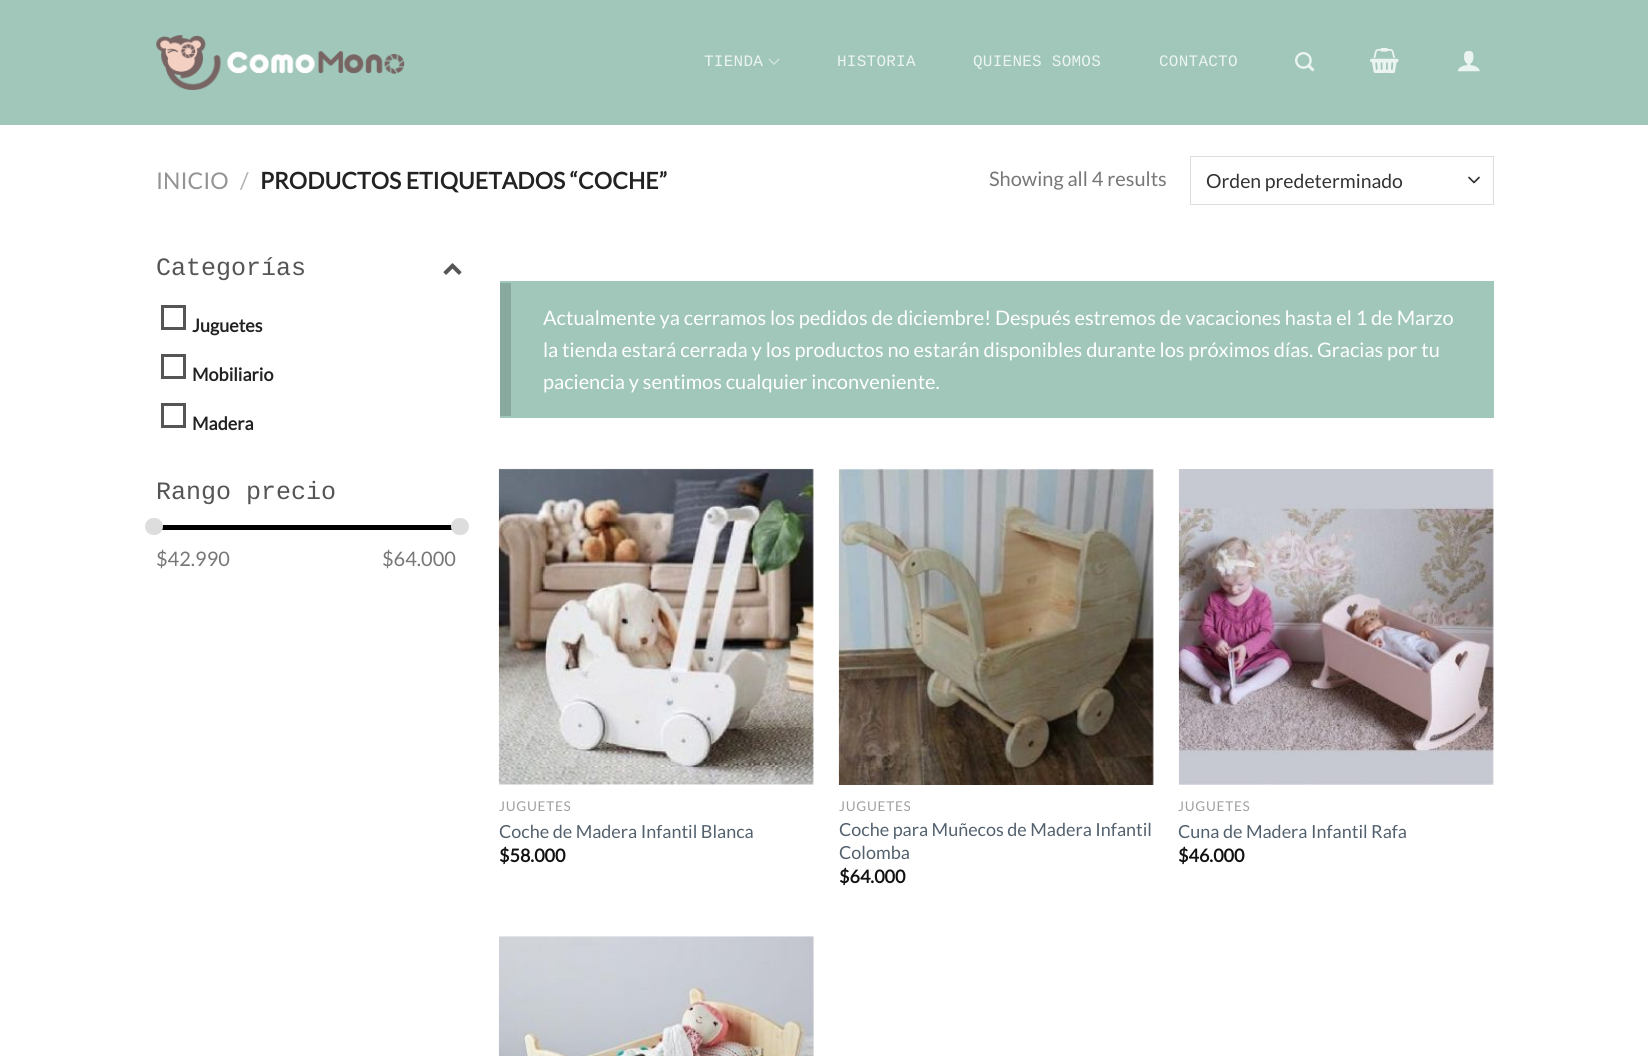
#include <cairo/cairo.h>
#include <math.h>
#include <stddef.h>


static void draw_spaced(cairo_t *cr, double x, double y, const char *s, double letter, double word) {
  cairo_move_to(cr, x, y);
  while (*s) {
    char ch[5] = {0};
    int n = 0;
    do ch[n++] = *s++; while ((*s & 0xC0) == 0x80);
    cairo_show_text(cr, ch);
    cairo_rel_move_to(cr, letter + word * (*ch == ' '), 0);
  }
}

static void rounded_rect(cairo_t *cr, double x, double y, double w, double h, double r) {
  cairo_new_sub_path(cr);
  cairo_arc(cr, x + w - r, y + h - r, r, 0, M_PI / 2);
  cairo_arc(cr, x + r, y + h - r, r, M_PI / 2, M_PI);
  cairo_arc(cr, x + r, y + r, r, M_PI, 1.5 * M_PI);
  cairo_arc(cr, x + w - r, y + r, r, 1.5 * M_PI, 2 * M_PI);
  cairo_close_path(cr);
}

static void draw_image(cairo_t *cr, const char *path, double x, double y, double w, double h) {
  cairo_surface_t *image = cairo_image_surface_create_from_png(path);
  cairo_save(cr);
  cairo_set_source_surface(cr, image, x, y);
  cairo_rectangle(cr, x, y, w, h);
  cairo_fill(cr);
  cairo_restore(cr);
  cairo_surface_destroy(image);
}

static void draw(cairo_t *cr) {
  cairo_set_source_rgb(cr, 1, 1, 1);
  cairo_paint(cr);
  cairo_set_source_rgb(cr, 160 / 255.0, 199 / 255.0, 185 / 255.0);
  cairo_rectangle(cr, 0, 0, 1648, 125);
  cairo_fill(cr);
  draw_image(cr, "images/1.png", 156, 35, 249, 55);
  draw_image(cr, "images/2.png", 768, 58, 12, 7);
  draw_image(cr, "images/3.png", 1295, 52, 20, 20);
  draw_image(cr, "images/4.png", 1370, 48, 29, 25);
  cairo_new_path(cr);
  cairo_move_to(cr, 1395, 82.5);
  cairo_line_to(cr, 1375, 82.5);
  cairo_line_to(cr, 1385, 72.5);
  cairo_close_path(cr);
  cairo_fill(cr);
  draw_image(cr, "images/5.png", 1457, 51, 23, 21);
  cairo_new_path(cr);
  cairo_move_to(cr, 1469, 177.5);
  cairo_line_to(cr, 1474, 182.5);
  cairo_line_to(cr, 1479, 177.5);
  cairo_set_source_rgb(cr, 51 / 255.0, 51 / 255.0, 51 / 255.0);
  cairo_set_line_width(cr, 1.7);
  cairo_set_line_cap(cr, CAIRO_LINE_CAP_ROUND);
  cairo_set_line_join(cr, CAIRO_LINE_JOIN_ROUND);
  cairo_stroke(cr);
  cairo_rectangle(cr, 1190.5, 156.5, 303, 48);
  cairo_set_source_rgb(cr, 221 / 255.0, 221 / 255.0, 221 / 255.0);
  cairo_set_line_width(cr, 1);
  cairo_set_line_cap(cr, CAIRO_LINE_CAP_BUTT);
  cairo_set_line_join(cr, CAIRO_LINE_JOIN_MITER);
  cairo_stroke(cr);
  draw_image(cr, "images/6.png", 443, 263, 19, 12);
  cairo_rectangle(cr, 162.5, 306.5, 22, 22);
  cairo_set_source_rgb(cr, 85 / 255.0, 85 / 255.0, 85 / 255.0);
  cairo_set_line_width(cr, 3);
  cairo_stroke(cr);
  cairo_rectangle(cr, 162.5, 355.5, 22, 22);
  cairo_stroke(cr);
  cairo_rectangle(cr, 162.5, 404.5, 22, 22);
  cairo_stroke(cr);
  cairo_set_source_rgb(cr, 0, 0, 0);
  cairo_rectangle(cr, 156, 525, 296, 5);
  cairo_fill(cr);
  cairo_set_source_rgb(cr, 221 / 255.0, 221 / 255.0, 221 / 255.0);
  rounded_rect(cr, 145, 518, 18, 17, 8.5);
  cairo_fill(cr);
  rounded_rect(cr, 451, 518, 18, 17, 8.5);
  cairo_fill(cr);
  cairo_set_source_rgb(cr, 160 / 255.0, 199 / 255.0, 185 / 255.0);
  cairo_rectangle(cr, 500, 281, 994, 137);
  cairo_fill(cr);
  cairo_set_source_rgb(cr, 136 / 255.0, 169 / 255.0, 157 / 255.0);
  cairo_rectangle(cr, 500, 283, 11, 133);
  cairo_fill(cr);
  draw_image(cr, "images/7.png", 498, 468, 316, 317);
  draw_image(cr, "images/8.png", 838, 468, 316, 317);
  draw_image(cr, "images/9.png", 1178, 469, 316, 316);
  draw_image(cr, "images/10.png", 498, 936, 316, 120);
  cairo_select_font_face(cr, "Liberation Mono", CAIRO_FONT_SLANT_NORMAL, CAIRO_FONT_WEIGHT_NORMAL);
  cairo_set_font_size(cr, 16);
  cairo_set_source_rgb(cr, 236 / 255.0, 244 / 255.0, 241 / 255.0);
  draw_spaced(cr, 704, 66, "TIENDA", 0.25, 0);
  draw_spaced(cr, 837, 66, "HISTORIA", 0.25, 0);
  draw_spaced(cr, 973, 66, "QUIENES SOMOS", 0.25, 0);
  draw_spaced(cr, 1159, 66, "CONTACTO", 0.25, 0);
  cairo_select_font_face(cr, "Lato", CAIRO_FONT_SLANT_NORMAL, CAIRO_FONT_WEIGHT_NORMAL);
  cairo_set_font_size(cr, 23);
  cairo_set_source_rgb(cr, 148 / 255.0, 148 / 255.0, 148 / 255.0);
  cairo_move_to(cr, 156, 189);
  cairo_show_text(cr, "INICIO");
  cairo_set_source_rgb(cr, 178 / 255.0, 178 / 255.0, 178 / 255.0);
  cairo_move_to(cr, 240, 189);
  cairo_show_text(cr, "/");
  cairo_select_font_face(cr, "Lato", CAIRO_FONT_SLANT_NORMAL, CAIRO_FONT_WEIGHT_BOLD);
  cairo_set_source_rgb(cr, 34 / 255.0, 34 / 255.0, 34 / 255.0);
  cairo_move_to(cr, 260, 189);
  cairo_show_text(cr, "PRODUCTOS ETIQUETADOS “COCHE”");
  cairo_select_font_face(cr, "Lato", CAIRO_FONT_SLANT_NORMAL, CAIRO_FONT_WEIGHT_NORMAL);
  cairo_set_font_size(cr, 20);
  cairo_set_source_rgb(cr, 119 / 255.0, 119 / 255.0, 119 / 255.0);
  cairo_move_to(cr, 989, 186);
  cairo_show_text(cr, "Showing all 4 results");
  cairo_set_font_size(cr, 19.4);
  cairo_set_source_rgb(cr, 51 / 255.0, 51 / 255.0, 51 / 255.0);
  cairo_move_to(cr, 1206, 188);
  cairo_show_text(cr, "Orden predeterminado");
  cairo_select_font_face(cr, "Liberation Mono", CAIRO_FONT_SLANT_NORMAL, CAIRO_FONT_WEIGHT_NORMAL);
  cairo_set_font_size(cr, 25);
  cairo_set_source_rgb(cr, 85 / 255.0, 85 / 255.0, 85 / 255.0);
  cairo_move_to(cr, 156, 275);
  cairo_show_text(cr, "Categorías");
  cairo_select_font_face(cr, "Lato", CAIRO_FONT_SLANT_NORMAL, CAIRO_FONT_WEIGHT_BOLD);
  cairo_set_font_size(cr, 18);
  cairo_set_source_rgb(cr, 34 / 255.0, 34 / 255.0, 34 / 255.0);
  cairo_move_to(cr, 192, 332);
  cairo_show_text(cr, "Juguetes");
  cairo_move_to(cr, 192, 381);
  cairo_show_text(cr, "Mobiliario");
  cairo_move_to(cr, 192, 430);
  cairo_show_text(cr, "Madera");
  cairo_select_font_face(cr, "Liberation Mono", CAIRO_FONT_SLANT_NORMAL, CAIRO_FONT_WEIGHT_NORMAL);
  cairo_set_font_size(cr, 25);
  cairo_set_source_rgb(cr, 85 / 255.0, 85 / 255.0, 85 / 255.0);
  cairo_move_to(cr, 156, 499);
  cairo_show_text(cr, "Rango precio");
  cairo_select_font_face(cr, "Lato", CAIRO_FONT_SLANT_NORMAL, CAIRO_FONT_WEIGHT_NORMAL);
  cairo_set_font_size(cr, 20);
  cairo_set_source_rgb(cr, 119 / 255.0, 119 / 255.0, 119 / 255.0);
  cairo_move_to(cr, 156, 566);
  cairo_show_text(cr, "$42.990");
  cairo_move_to(cr, 382, 566);
  cairo_show_text(cr, "$64.000");
  cairo_set_source_rgb(cr, 1, 1, 1);
  cairo_move_to(cr, 543, 325);
  cairo_show_text(cr, "Actualmente ya cerramos los pedidos de diciembre! Después estremos de vacaciones hasta el 1 de Marzo");
  cairo_move_to(cr, 543, 357);
  cairo_show_text(cr, "la tienda estará cerrada y los productos no estarán disponibles durante los próximos días. Gracias por tu");
  cairo_move_to(cr, 543, 389);
  cairo_show_text(cr, "paciencia y sentimos cualquier inconveniente.");
  cairo_set_font_size(cr, 13.5);
  cairo_set_source_rgb(cr, 160 / 255.0, 160 / 255.0, 160 / 255.0);
  draw_spaced(cr, 499, 811, "JUGUETES", 0.75, 0);
  cairo_set_font_size(cr, 18);
  cairo_set_source_rgb(cr, 83 / 255.0, 97 / 255.0, 110 / 255.0);
  cairo_move_to(cr, 499, 838);
  cairo_show_text(cr, "Coche de Madera Infantil Blanca");
  cairo_select_font_face(cr, "Lato", CAIRO_FONT_SLANT_NORMAL, CAIRO_FONT_WEIGHT_BOLD);
  cairo_set_source_rgb(cr, 17 / 255.0, 17 / 255.0, 17 / 255.0);
  cairo_move_to(cr, 499, 862);
  cairo_show_text(cr, "$58.000");
  cairo_select_font_face(cr, "Lato", CAIRO_FONT_SLANT_NORMAL, CAIRO_FONT_WEIGHT_NORMAL);
  cairo_set_font_size(cr, 13.5);
  cairo_set_source_rgb(cr, 160 / 255.0, 160 / 255.0, 160 / 255.0);
  draw_spaced(cr, 839, 811, "JUGUETES", 0.75, 0);
  cairo_set_font_size(cr, 18);
  cairo_set_source_rgb(cr, 83 / 255.0, 97 / 255.0, 110 / 255.0);
  cairo_move_to(cr, 839, 836);
  cairo_show_text(cr, "Coche para Muñecos de Madera Infantil");
  cairo_move_to(cr, 839, 859);
  cairo_show_text(cr, "Colomba");
  cairo_select_font_face(cr, "Lato", CAIRO_FONT_SLANT_NORMAL, CAIRO_FONT_WEIGHT_BOLD);
  cairo_set_source_rgb(cr, 17 / 255.0, 17 / 255.0, 17 / 255.0);
  cairo_move_to(cr, 839, 883);
  cairo_show_text(cr, "$64.000");
  cairo_select_font_face(cr, "Lato", CAIRO_FONT_SLANT_NORMAL, CAIRO_FONT_WEIGHT_NORMAL);
  cairo_set_font_size(cr, 13.5);
  cairo_set_source_rgb(cr, 160 / 255.0, 160 / 255.0, 160 / 255.0);
  draw_spaced(cr, 1178, 811, "JUGUETES", 0.75, 0);
  cairo_set_font_size(cr, 18);
  cairo_set_source_rgb(cr, 83 / 255.0, 97 / 255.0, 110 / 255.0);
  cairo_move_to(cr, 1178, 838);
  cairo_show_text(cr, "Cuna de Madera Infantil Rafa");
  cairo_select_font_face(cr, "Lato", CAIRO_FONT_SLANT_NORMAL, CAIRO_FONT_WEIGHT_BOLD);
  cairo_set_source_rgb(cr, 17 / 255.0, 17 / 255.0, 17 / 255.0);
  cairo_move_to(cr, 1178, 862);
  cairo_show_text(cr, "$46.000");
}

int main(void) {
  cairo_surface_t *surface = cairo_image_surface_create(CAIRO_FORMAT_RGB24, 1648, 1056);
  cairo_t *cr = cairo_create(surface);
  cairo_font_options_t *options = cairo_font_options_create();
  cairo_font_options_set_hint_metrics(options, CAIRO_HINT_METRICS_OFF);
  cairo_font_options_set_hint_style(options, CAIRO_HINT_STYLE_NONE);
  cairo_set_font_options(cr, options);
  cairo_set_miter_limit(cr, 4);
  draw(cr);
  cairo_surface_write_to_png(surface, "out.png");
  cairo_font_options_destroy(options);
  cairo_destroy(cr);
  cairo_surface_destroy(surface);
  return 0;
}
